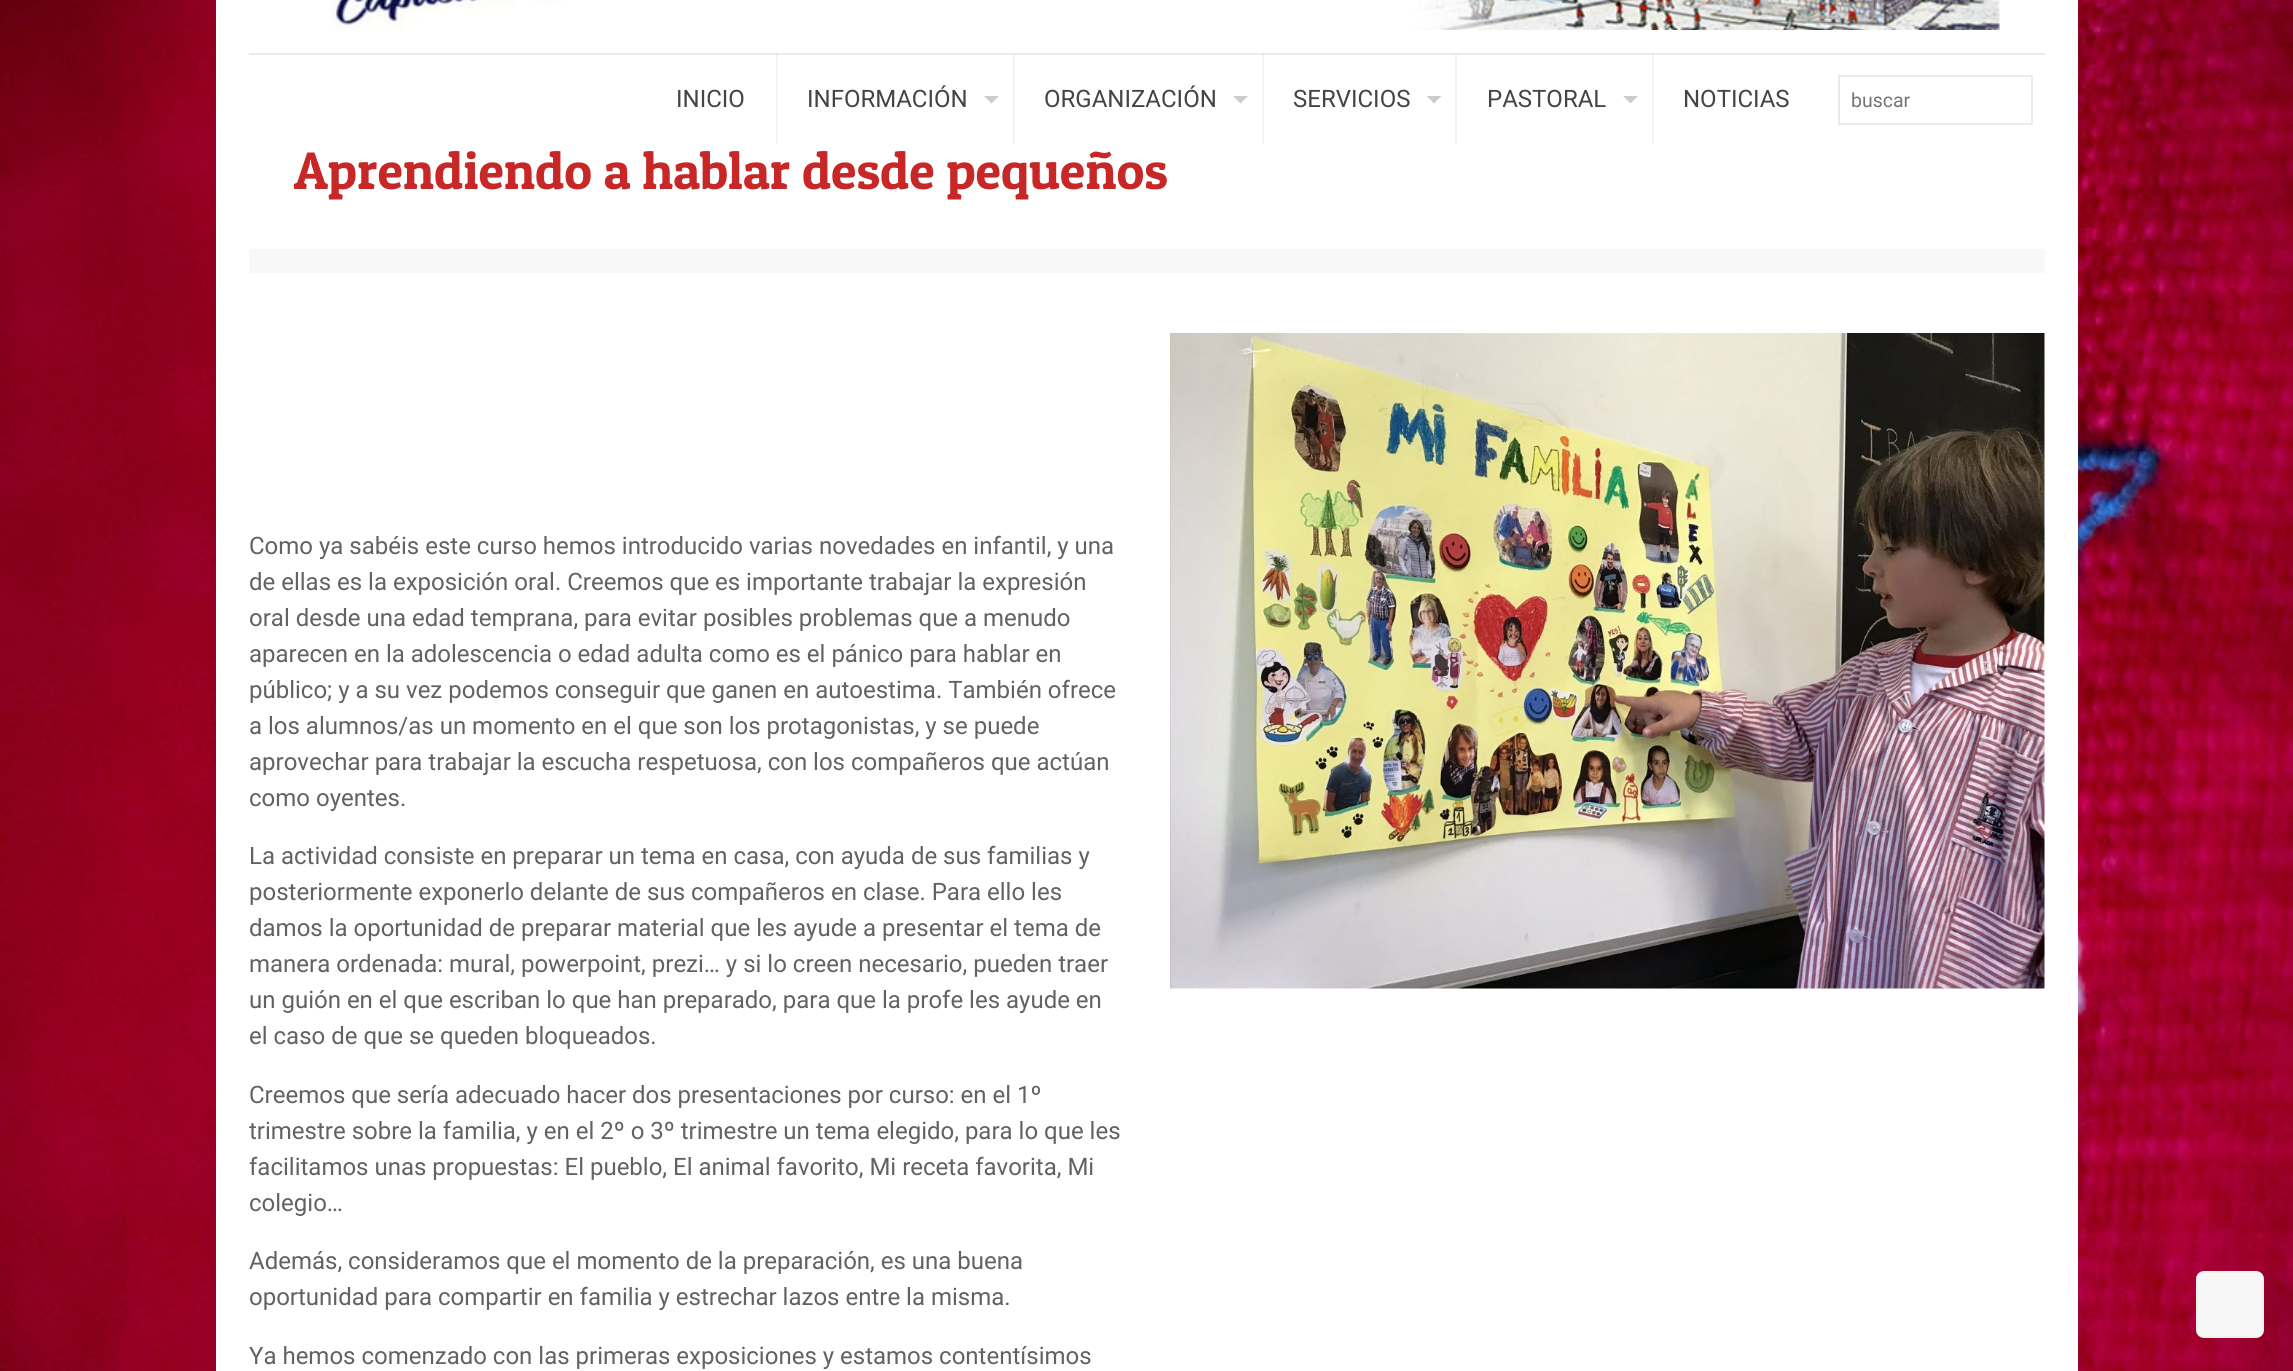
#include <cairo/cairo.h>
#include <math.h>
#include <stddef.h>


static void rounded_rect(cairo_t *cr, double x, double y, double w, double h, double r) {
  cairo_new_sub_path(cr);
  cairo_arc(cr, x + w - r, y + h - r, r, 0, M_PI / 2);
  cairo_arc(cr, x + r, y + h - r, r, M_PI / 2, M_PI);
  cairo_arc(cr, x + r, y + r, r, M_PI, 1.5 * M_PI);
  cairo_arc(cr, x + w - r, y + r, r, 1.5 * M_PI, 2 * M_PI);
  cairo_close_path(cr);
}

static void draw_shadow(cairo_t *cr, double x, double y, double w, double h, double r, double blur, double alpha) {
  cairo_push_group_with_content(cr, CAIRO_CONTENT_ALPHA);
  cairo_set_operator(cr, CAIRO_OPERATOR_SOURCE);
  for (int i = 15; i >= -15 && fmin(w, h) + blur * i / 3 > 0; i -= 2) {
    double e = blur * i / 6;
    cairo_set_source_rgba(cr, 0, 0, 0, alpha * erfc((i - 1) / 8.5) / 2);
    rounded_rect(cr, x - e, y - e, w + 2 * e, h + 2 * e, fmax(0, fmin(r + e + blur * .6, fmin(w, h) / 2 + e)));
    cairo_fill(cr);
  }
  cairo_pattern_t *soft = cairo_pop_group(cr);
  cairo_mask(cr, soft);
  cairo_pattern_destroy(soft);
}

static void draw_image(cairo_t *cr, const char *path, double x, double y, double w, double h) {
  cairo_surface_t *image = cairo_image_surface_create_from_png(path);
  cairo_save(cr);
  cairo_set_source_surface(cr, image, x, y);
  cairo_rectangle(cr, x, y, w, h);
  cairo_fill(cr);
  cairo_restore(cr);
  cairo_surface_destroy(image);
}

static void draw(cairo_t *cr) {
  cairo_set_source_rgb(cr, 1, 1, 1);
  cairo_paint(cr);
  draw_image(cr, "images/1.png", 0, 0, 2293, 1371);
  cairo_set_source_rgb(cr, 0, 0, 0);
  draw_shadow(cr, 216, -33, 1862, 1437, 0, 11, 0.06);
  cairo_set_source_rgb(cr, 1, 1, 1);
  cairo_rectangle(cr, 216, 0, 1862, 1371);
  cairo_fill(cr);
  cairo_set_source_rgb(cr, 235 / 255.0, 235 / 255.0, 235 / 255.0);
  cairo_rectangle(cr, 249, 53, 1796, 2);
  cairo_fill(cr);
  draw_image(cr, "images/2.png", 330, 0, 1670, 30);
  cairo_set_source_rgba(cr, 0, 0, 0, 0.05);
  cairo_rectangle(cr, 776, 54, 2, 90);
  cairo_fill(cr);
  cairo_rectangle(cr, 1013, 54, 2, 90);
  cairo_fill(cr);
  cairo_set_source_rgb(cr, 204 / 255.0, 204 / 255.0, 204 / 255.0);
  cairo_new_path(cr);
  cairo_move_to(cr, 984, 96);
  cairo_line_to(cr, 999, 96);
  cairo_line_to(cr, 991.5, 103.5);
  cairo_close_path(cr);
  cairo_fill(cr);
  cairo_set_source_rgba(cr, 0, 0, 0, 0.05);
  cairo_rectangle(cr, 1262, 54, 2, 90);
  cairo_fill(cr);
  cairo_set_source_rgb(cr, 204 / 255.0, 204 / 255.0, 204 / 255.0);
  cairo_new_path(cr);
  cairo_move_to(cr, 1233, 96);
  cairo_line_to(cr, 1248, 96);
  cairo_line_to(cr, 1240.5, 103.5);
  cairo_close_path(cr);
  cairo_fill(cr);
  cairo_set_source_rgba(cr, 0, 0, 0, 0.05);
  cairo_rectangle(cr, 1455, 54, 2, 90);
  cairo_fill(cr);
  cairo_set_source_rgb(cr, 204 / 255.0, 204 / 255.0, 204 / 255.0);
  cairo_new_path(cr);
  cairo_move_to(cr, 1426.5, 96);
  cairo_line_to(cr, 1441.5, 96);
  cairo_line_to(cr, 1434, 103.5);
  cairo_close_path(cr);
  cairo_fill(cr);
  cairo_set_source_rgba(cr, 0, 0, 0, 0.05);
  cairo_rectangle(cr, 1652, 54, 2, 90);
  cairo_fill(cr);
  cairo_set_source_rgb(cr, 204 / 255.0, 204 / 255.0, 204 / 255.0);
  cairo_new_path(cr);
  cairo_move_to(cr, 1623, 96);
  cairo_line_to(cr, 1638, 96);
  cairo_line_to(cr, 1630.5, 103.5);
  cairo_close_path(cr);
  cairo_fill(cr);
  cairo_rectangle(cr, 1839, 76, 193, 48);
  cairo_set_source_rgb(cr, 235 / 255.0, 235 / 255.0, 235 / 255.0);
  cairo_stroke(cr);
  cairo_set_source_rgb(cr, 248 / 255.0, 248 / 255.0, 248 / 255.0);
  cairo_rectangle(cr, 249, 249, 1796, 24);
  cairo_fill(cr);
  draw_image(cr, "images/3.png", 1170, 333, 875, 656);
  cairo_set_source_rgb(cr, 247 / 255.0, 247 / 255.0, 247 / 255.0);
  rounded_rect(cr, 2196, 1271, 68, 67, 8);
  cairo_fill(cr);
  cairo_rectangle(cr, 2197, 1272, 66, 65);
  cairo_set_source_rgba(cr, 0, 0, 0, 0.03);
  cairo_stroke(cr);
  cairo_select_font_face(cr, "Roboto", CAIRO_FONT_SLANT_NORMAL, CAIRO_FONT_WEIGHT_NORMAL);
  cairo_set_font_size(cr, 24);
  cairo_set_source_rgb(cr, 68 / 255.0, 68 / 255.0, 68 / 255.0);
  cairo_move_to(cr, 676, 107);
  cairo_show_text(cr, "INICIO");
  cairo_move_to(cr, 807, 107);
  cairo_show_text(cr, "INFORMACIÓN");
  cairo_move_to(cr, 1044, 107);
  cairo_show_text(cr, "ORGANIZACIÓN");
  cairo_move_to(cr, 1293, 107);
  cairo_show_text(cr, "SERVICIOS");
  cairo_move_to(cr, 1487, 107);
  cairo_show_text(cr, "PASTORAL");
  cairo_move_to(cr, 1683, 107);
  cairo_show_text(cr, "NOTICIAS");
  cairo_set_font_size(cr, 19.5);
  cairo_set_source_rgb(cr, 117 / 255.0, 117 / 255.0, 117 / 255.0);
  cairo_move_to(cr, 1851, 107);
  cairo_show_text(cr, "buscar");
  cairo_select_font_face(cr, "Patua One", CAIRO_FONT_SLANT_NORMAL, CAIRO_FONT_WEIGHT_NORMAL);
  cairo_set_font_size(cr, 52.5);
  cairo_set_source_rgb(cr, 199 / 255.0, 39 / 255.0, 39 / 255.0);
  cairo_move_to(cr, 294, 189);
  cairo_show_text(cr, "Aprendiendo a hablar desde pequeños");
  cairo_select_font_face(cr, "Roboto", CAIRO_FONT_SLANT_NORMAL, CAIRO_FONT_WEIGHT_NORMAL);
  cairo_set_font_size(cr, 24);
  cairo_set_source_rgb(cr, 98 / 255.0, 98 / 255.0, 98 / 255.0);
  cairo_move_to(cr, 249, 554);
  cairo_show_text(cr, "Como ya sabéis este curso hemos introducido varias novedades en infantil, y una");
  cairo_move_to(cr, 249, 590);
  cairo_show_text(cr, "de ellas es la exposición oral. Creemos que es importante trabajar la expresión");
  cairo_move_to(cr, 249, 626);
  cairo_show_text(cr, "oral desde una edad temprana, para evitar posibles problemas que a menudo");
  cairo_move_to(cr, 249, 662);
  cairo_show_text(cr, "aparecen en la adolescencia o edad adulta como es el pánico para hablar en");
  cairo_move_to(cr, 249, 698);
  cairo_show_text(cr, "público; y a su vez podemos conseguir que ganen en autoestima. También ofrece");
  cairo_move_to(cr, 249, 734);
  cairo_show_text(cr, "a los alumnos/as un momento en el que son los protagonistas, y se puede");
  cairo_move_to(cr, 249, 770);
  cairo_show_text(cr, "aprovechar para trabajar la escucha respetuosa, con los compañeros que actúan");
  cairo_move_to(cr, 249, 806);
  cairo_show_text(cr, "como oyentes.");
  cairo_move_to(cr, 249, 864);
  cairo_show_text(cr, "La actividad consiste en preparar un tema en casa, con ayuda de sus familias y");
  cairo_move_to(cr, 249, 900);
  cairo_show_text(cr, "posteriormente exponerlo delante de sus compañeros en clase. Para ello les");
  cairo_move_to(cr, 249, 936);
  cairo_show_text(cr, "damos la oportunidad de preparar material que les ayude a presentar el tema de");
  cairo_move_to(cr, 249, 972);
  cairo_show_text(cr, "manera ordenada: mural, powerpoint, prezi… y si lo creen necesario, pueden traer");
  cairo_move_to(cr, 249, 1008);
  cairo_show_text(cr, "un guión en el que escriban lo que han preparado, para que la profe les ayude en");
  cairo_move_to(cr, 249, 1044);
  cairo_show_text(cr, "el caso de que se queden bloqueados.");
  cairo_move_to(cr, 249, 1103);
  cairo_show_text(cr, "Creemos que sería adecuado hacer dos presentaciones por curso: en el 1º");
  cairo_move_to(cr, 249, 1139);
  cairo_show_text(cr, "trimestre sobre la familia, y en el 2º o 3º trimestre un tema elegido, para lo que les");
  cairo_move_to(cr, 249, 1175);
  cairo_show_text(cr, "facilitamos unas propuestas: El pueblo, El animal favorito, Mi receta favorita, Mi");
  cairo_move_to(cr, 249, 1211);
  cairo_show_text(cr, "colegio…");
  cairo_move_to(cr, 249, 1269);
  cairo_show_text(cr, "Además, consideramos que el momento de la preparación, es una buena");
  cairo_move_to(cr, 249, 1305);
  cairo_show_text(cr, "oportunidad para compartir en familia y estrechar lazos entre la misma.");
  cairo_move_to(cr, 249, 1364);
  cairo_show_text(cr, "Ya hemos comenzado con las primeras exposiciones y estamos contentísimos");
}

int main(void) {
  cairo_surface_t *surface = cairo_image_surface_create(CAIRO_FORMAT_RGB24, 2293, 1371);
  cairo_t *cr = cairo_create(surface);
  cairo_font_options_t *options = cairo_font_options_create();
  cairo_font_options_set_hint_metrics(options, CAIRO_HINT_METRICS_OFF);
  cairo_font_options_set_hint_style(options, CAIRO_HINT_STYLE_NONE);
  cairo_set_font_options(cr, options);
  cairo_set_miter_limit(cr, 4);
  draw(cr);
  cairo_surface_write_to_png(surface, "out.png");
  cairo_font_options_destroy(options);
  cairo_destroy(cr);
  cairo_surface_destroy(surface);
  return 0;
}
